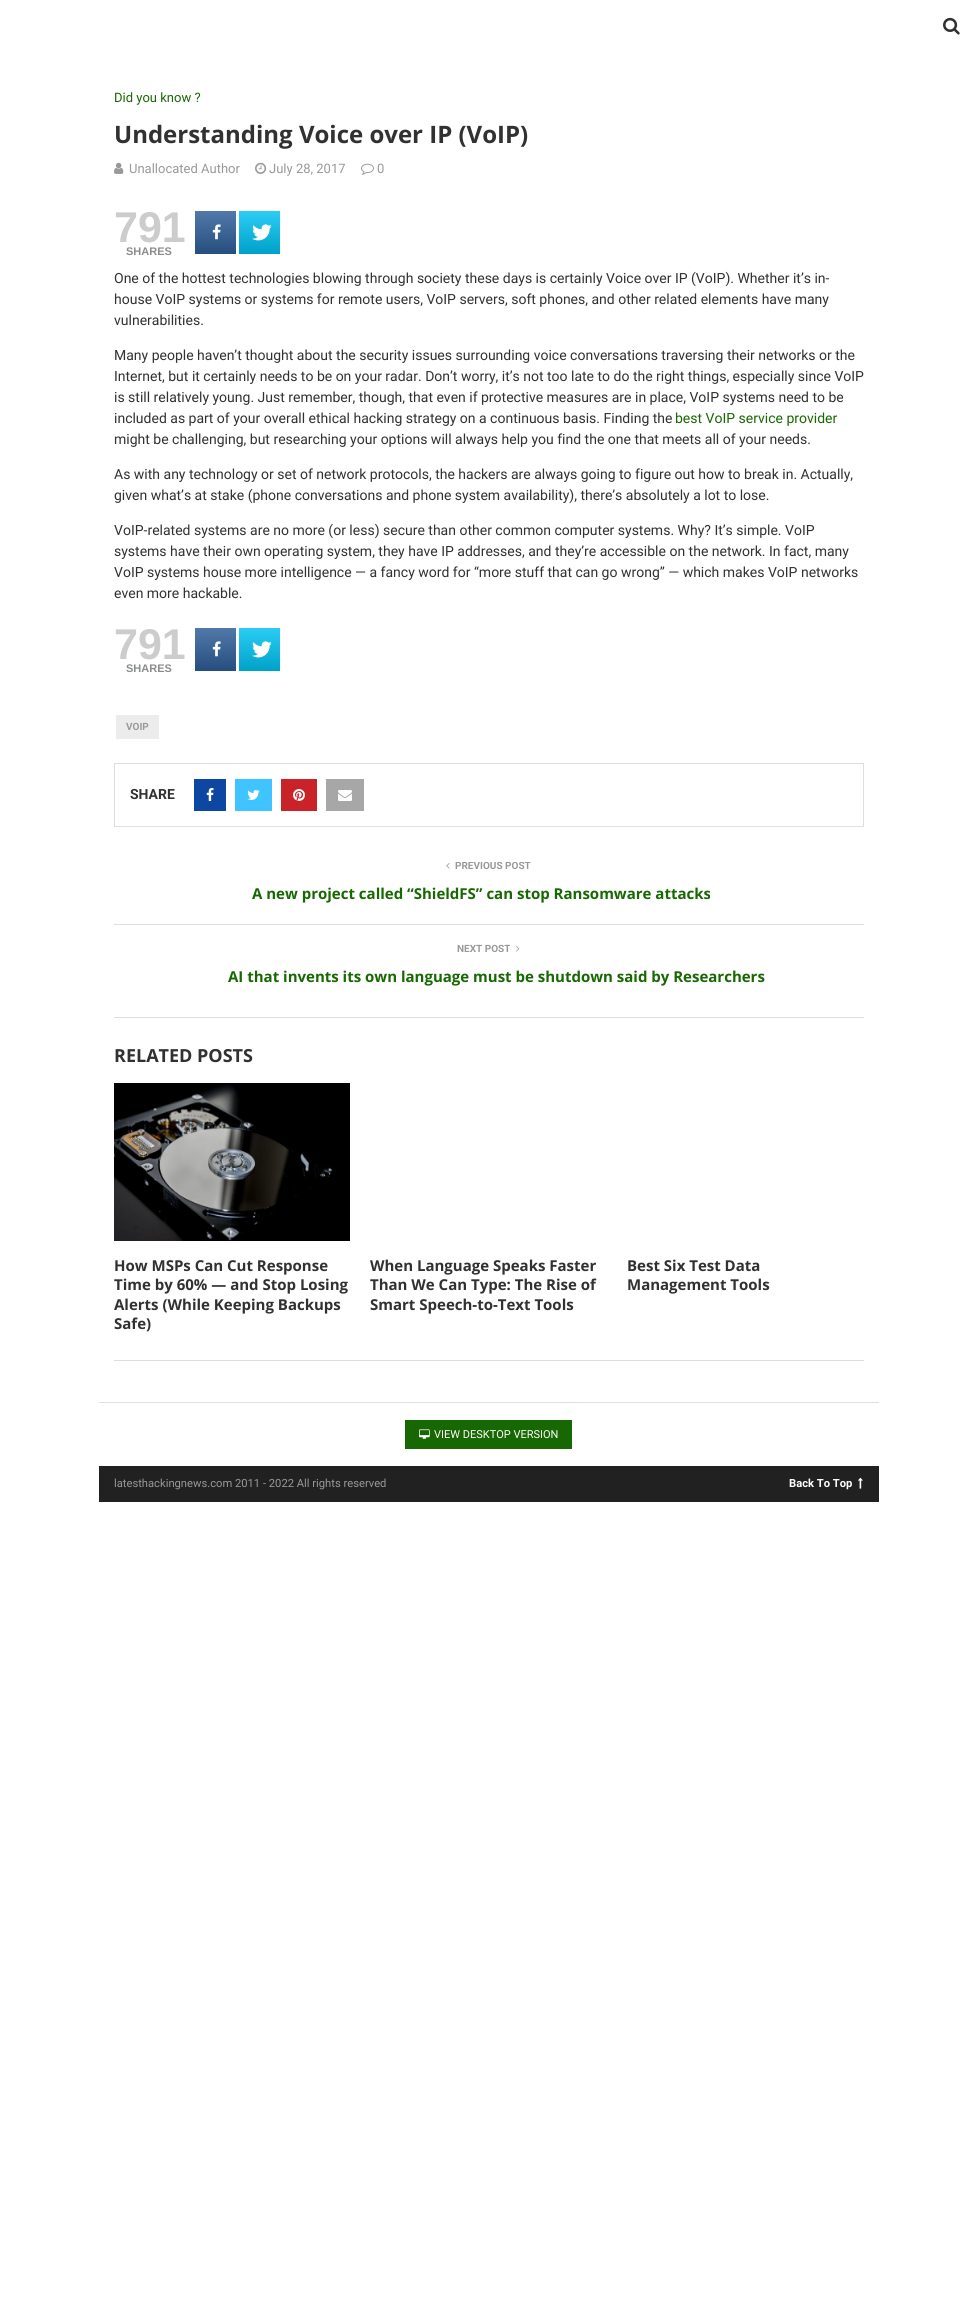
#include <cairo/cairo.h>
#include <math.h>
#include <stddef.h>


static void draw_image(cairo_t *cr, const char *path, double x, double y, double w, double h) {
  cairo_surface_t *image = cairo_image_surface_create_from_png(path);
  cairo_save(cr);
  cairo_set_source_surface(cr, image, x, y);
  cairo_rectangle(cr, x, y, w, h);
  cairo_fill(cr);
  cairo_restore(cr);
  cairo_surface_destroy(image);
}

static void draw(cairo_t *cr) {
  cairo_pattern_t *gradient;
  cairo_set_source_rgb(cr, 1, 1, 1);
  cairo_paint(cr);
  draw_image(cr, "images/1.png", 943, 17, 17, 18);
  draw_image(cr, "images/2.png", 114, 162, 10, 12);
  draw_image(cr, "images/3.png", 255, 162, 12, 12);
  draw_image(cr, "images/4.png", 361, 163, 13, 12);
  gradient = cairo_pattern_create_linear(216, 254, 216, 211);
  cairo_pattern_add_color_stop_rgba(gradient, 0, 37 / 255.0, 79 / 255.0, 128 / 255.0, 1);
  cairo_pattern_add_color_stop_rgba(gradient, 1, 81 / 255.0, 122 / 255.0, 171 / 255.0, 1);
  cairo_set_source(cr, gradient);
  cairo_pattern_destroy(gradient);
  cairo_rectangle(cr, 195, 211, 41, 43);
  cairo_fill(cr);
  draw_image(cr, "images/5.png", 212, 224, 9, 16);
  gradient = cairo_pattern_create_linear(260, 254, 260, 211);
  cairo_pattern_add_color_stop_rgba(gradient, 0, 0, 162 / 255.0, 202 / 255.0, 1);
  cairo_pattern_add_color_stop_rgba(gradient, 1, 43 / 255.0, 205 / 255.0, 245 / 255.0, 1);
  cairo_set_source(cr, gradient);
  cairo_pattern_destroy(gradient);
  cairo_rectangle(cr, 239, 211, 41, 43);
  cairo_fill(cr);
  draw_image(cr, "images/6.png", 252, 224, 20, 17);
  gradient = cairo_pattern_create_linear(216, 671, 216, 628);
  cairo_pattern_add_color_stop_rgba(gradient, 0, 37 / 255.0, 79 / 255.0, 128 / 255.0, 1);
  cairo_pattern_add_color_stop_rgba(gradient, 1, 81 / 255.0, 122 / 255.0, 171 / 255.0, 1);
  cairo_set_source(cr, gradient);
  cairo_pattern_destroy(gradient);
  cairo_rectangle(cr, 195, 628, 41, 43);
  cairo_fill(cr);
  draw_image(cr, "images/5.png", 212, 641, 9, 16);
  gradient = cairo_pattern_create_linear(260, 671, 260, 628);
  cairo_pattern_add_color_stop_rgba(gradient, 0, 0, 162 / 255.0, 202 / 255.0, 1);
  cairo_pattern_add_color_stop_rgba(gradient, 1, 43 / 255.0, 205 / 255.0, 245 / 255.0, 1);
  cairo_set_source(cr, gradient);
  cairo_pattern_destroy(gradient);
  cairo_rectangle(cr, 239, 628, 41, 43);
  cairo_fill(cr);
  draw_image(cr, "images/6.png", 252, 641, 20, 17);
  cairo_set_source_rgb(cr, 236 / 255.0, 236 / 255.0, 236 / 255.0);
  cairo_rectangle(cr, 116, 715, 43, 24);
  cairo_fill(cr);
  cairo_rectangle(cr, 114.5, 763.5, 749, 63);
  cairo_set_source_rgb(cr, 222 / 255.0, 222 / 255.0, 222 / 255.0);
  cairo_set_line_width(cr, 1);
  cairo_stroke(cr);
  cairo_set_source_rgb(cr, 13 / 255.0, 71 / 255.0, 161 / 255.0);
  cairo_rectangle(cr, 194, 779, 32, 32);
  cairo_fill(cr);
  draw_image(cr, "images/7.png", 206, 788, 8, 13);
  cairo_set_source_rgb(cr, 64 / 255.0, 196 / 255.0, 1);
  cairo_rectangle(cr, 235, 779, 37, 32);
  cairo_fill(cr);
  draw_image(cr, "images/8.png", 247, 790, 13, 10);
  cairo_set_source_rgb(cr, 201 / 255.0, 34 / 255.0, 40 / 255.0);
  cairo_rectangle(cr, 281, 779, 36, 32);
  cairo_fill(cr);
  draw_image(cr, "images/9.png", 293, 789, 12, 12);
  cairo_set_source_rgb(cr, 167 / 255.0, 167 / 255.0, 167 / 255.0);
  cairo_rectangle(cr, 326, 779, 38, 32);
  cairo_fill(cr);
  draw_image(cr, "images/10.png", 338, 790, 14, 11);
  draw_image(cr, "images/11.png", 446, 863, 4, 6);
  cairo_set_source_rgb(cr, 222 / 255.0, 222 / 255.0, 222 / 255.0);
  cairo_rectangle(cr, 114, 924, 750, 1);
  cairo_fill(cr);
  draw_image(cr, "images/12.png", 516, 946, 4, 6);
  cairo_rectangle(cr, 114, 1017, 750, 1);
  cairo_fill(cr);
  draw_image(cr, "images/13.png", 114, 1083, 236, 158);
  cairo_rectangle(cr, 114, 1360, 750, 1);
  cairo_fill(cr);
  cairo_rectangle(cr, 99, 1402, 780, 1);
  cairo_fill(cr);
  cairo_set_source_rgb(cr, 23 / 255.0, 104 / 255.0, 2 / 255.0);
  cairo_rectangle(cr, 405, 1420, 167, 29);
  cairo_fill(cr);
  draw_image(cr, "images/14.png", 419, 1429, 11, 10);
  cairo_set_source_rgb(cr, 33 / 255.0, 33 / 255.0, 33 / 255.0);
  cairo_rectangle(cr, 99, 1466, 780, 36);
  cairo_fill(cr);
  draw_image(cr, "images/15.png", 858, 1477, 5, 12);
  cairo_select_font_face(cr, "Roboto", CAIRO_FONT_SLANT_NORMAL, CAIRO_FONT_WEIGHT_NORMAL);
  cairo_set_font_size(cr, 13);
  cairo_set_source_rgb(cr, 23 / 255.0, 104 / 255.0, 2 / 255.0);
  cairo_move_to(cr, 114, 102);
  cairo_show_text(cr, "Did you know ?");
  cairo_select_font_face(cr, "Open Sans", CAIRO_FONT_SLANT_NORMAL, CAIRO_FONT_WEIGHT_BOLD);
  cairo_set_font_size(cr, 24);
  cairo_set_source_rgb(cr, 49 / 255.0, 49 / 255.0, 49 / 255.0);
  cairo_move_to(cr, 114, 143);
  cairo_show_text(cr, "Understanding Voice over IP (VoIP)");
  cairo_select_font_face(cr, "Roboto", CAIRO_FONT_SLANT_NORMAL, CAIRO_FONT_WEIGHT_NORMAL);
  cairo_set_font_size(cr, 13);
  cairo_set_source_rgb(cr, 153 / 255.0, 153 / 255.0, 153 / 255.0);
  cairo_move_to(cr, 129, 173);
  cairo_show_text(cr, "Unallocated Author");
  cairo_move_to(cr, 269, 173);
  cairo_show_text(cr, "July 28, 2017");
  cairo_move_to(cr, 377, 173);
  cairo_show_text(cr, "0");
  cairo_select_font_face(cr, "Liberation Sans", CAIRO_FONT_SLANT_NORMAL, CAIRO_FONT_WEIGHT_BOLD);
  cairo_set_font_size(cr, 43);
  cairo_set_source_rgb(cr, 204 / 255.0, 204 / 255.0, 204 / 255.0);
  cairo_move_to(cr, 114, 242);
  cairo_show_text(cr, "791");
  cairo_set_font_size(cr, 11);
  cairo_set_source_rgb(cr, 138 / 255.0, 140 / 255.0, 142 / 255.0);
  cairo_move_to(cr, 126, 255);
  cairo_show_text(cr, "SHARES");
  cairo_select_font_face(cr, "Roboto", CAIRO_FONT_SLANT_NORMAL, CAIRO_FONT_WEIGHT_NORMAL);
  cairo_set_font_size(cr, 14);
  cairo_set_source_rgb(cr, 49 / 255.0, 49 / 255.0, 49 / 255.0);
  cairo_move_to(cr, 114, 283);
  cairo_show_text(cr, "One of the hottest technologies blowing through society these days is certainly Voice over IP (VoIP). Whether it’s in-");
  cairo_move_to(cr, 114, 304);
  cairo_show_text(cr, "house VoIP systems or systems for remote users, VoIP servers, soft phones, and other related elements have many");
  cairo_move_to(cr, 114, 325);
  cairo_show_text(cr, "vulnerabilities.");
  cairo_move_to(cr, 114, 360);
  cairo_show_text(cr, "Many people haven’t thought about the security issues surrounding voice conversations traversing their networks or the");
  cairo_move_to(cr, 114, 381);
  cairo_show_text(cr, "Internet, but it certainly needs to be on your radar. Don’t worry, it’s not too late to do the right things, especially since VoIP");
  cairo_move_to(cr, 114, 402);
  cairo_show_text(cr, "is still relatively young. Just remember, though, that even if protective measures are in place, VoIP systems need to be");
  cairo_move_to(cr, 114, 423);
  cairo_show_text(cr, "included as part of your overall ethical hacking strategy on a continuous basis. Finding the");
  cairo_set_source_rgb(cr, 23 / 255.0, 104 / 255.0, 2 / 255.0);
  cairo_move_to(cr, 675, 423);
  cairo_show_text(cr, "best VoIP service provider");
  cairo_set_source_rgb(cr, 49 / 255.0, 49 / 255.0, 49 / 255.0);
  cairo_move_to(cr, 114, 444);
  cairo_show_text(cr, "might be challenging, but researching your options will always help you find the one that meets all of your needs.");
  cairo_move_to(cr, 114, 479);
  cairo_show_text(cr, "As with any technology or set of network protocols, the hackers are always going to figure out how to break in. Actually,");
  cairo_move_to(cr, 114, 500);
  cairo_show_text(cr, "given what’s at stake (phone conversations and phone system availability), there’s absolutely a lot to lose.");
  cairo_move_to(cr, 114, 535);
  cairo_show_text(cr, "VoIP-related systems are no more (or less) secure than other common computer systems. Why? It’s simple. VoIP");
  cairo_move_to(cr, 114, 556);
  cairo_show_text(cr, "systems have their own operating system, they have IP addresses, and they’re accessible on the network. In fact, many");
  cairo_move_to(cr, 114, 577);
  cairo_show_text(cr, "VoIP systems house more intelligence — a fancy word for “more stuff that can go wrong” — which makes VoIP networks");
  cairo_move_to(cr, 114, 598);
  cairo_show_text(cr, "even more hackable.");
  cairo_select_font_face(cr, "Liberation Sans", CAIRO_FONT_SLANT_NORMAL, CAIRO_FONT_WEIGHT_BOLD);
  cairo_set_font_size(cr, 43);
  cairo_set_source_rgb(cr, 204 / 255.0, 204 / 255.0, 204 / 255.0);
  cairo_move_to(cr, 114, 659);
  cairo_show_text(cr, "791");
  cairo_set_font_size(cr, 11);
  cairo_set_source_rgb(cr, 138 / 255.0, 140 / 255.0, 142 / 255.0);
  cairo_move_to(cr, 126, 672);
  cairo_show_text(cr, "SHARES");
  cairo_select_font_face(cr, "Roboto", CAIRO_FONT_SLANT_NORMAL, CAIRO_FONT_WEIGHT_BOLD);
  cairo_set_font_size(cr, 10);
  cairo_set_source_rgb(cr, 153 / 255.0, 153 / 255.0, 153 / 255.0);
  cairo_move_to(cr, 126, 730);
  cairo_show_text(cr, "VOIP");
  cairo_set_font_size(cr, 14);
  cairo_set_source_rgb(cr, 49 / 255.0, 49 / 255.0, 49 / 255.0);
  cairo_move_to(cr, 130, 799);
  cairo_show_text(cr, "SHARE");
  cairo_save(cr);
  cairo_rectangle(cr, 114, 862, 750, 155);
  cairo_clip(cr);
  cairo_set_font_size(cr, 10);
  cairo_set_source_rgb(cr, 153 / 255.0, 153 / 255.0, 153 / 255.0);
  cairo_move_to(cr, 455, 869);
  cairo_show_text(cr, "PREVIOUS POST");
  cairo_restore(cr);
  cairo_select_font_face(cr, "Open Sans", CAIRO_FONT_SLANT_NORMAL, CAIRO_FONT_WEIGHT_BOLD);
  cairo_set_font_size(cr, 15);
  cairo_set_source_rgb(cr, 23 / 255.0, 104 / 255.0, 2 / 255.0);
  cairo_move_to(cr, 252, 899);
  cairo_show_text(cr, "A new project called “ShieldFS” can stop Ransomware attacks");
  cairo_select_font_face(cr, "Roboto", CAIRO_FONT_SLANT_NORMAL, CAIRO_FONT_WEIGHT_BOLD);
  cairo_set_font_size(cr, 10);
  cairo_set_source_rgb(cr, 153 / 255.0, 153 / 255.0, 153 / 255.0);
  cairo_move_to(cr, 457, 952);
  cairo_show_text(cr, "NEXT POST");
  cairo_select_font_face(cr, "Open Sans", CAIRO_FONT_SLANT_NORMAL, CAIRO_FONT_WEIGHT_BOLD);
  cairo_set_font_size(cr, 15);
  cairo_set_source_rgb(cr, 23 / 255.0, 104 / 255.0, 2 / 255.0);
  cairo_move_to(cr, 228, 982);
  cairo_show_text(cr, "AI that invents its own language must be shutdown said by Researchers");
  cairo_set_font_size(cr, 18);
  cairo_set_source_rgb(cr, 49 / 255.0, 49 / 255.0, 49 / 255.0);
  cairo_move_to(cr, 114, 1062);
  cairo_show_text(cr, "RELATED POSTS");
  cairo_set_font_size(cr, 15);
  cairo_move_to(cr, 114, 1271);
  cairo_show_text(cr, "How MSPs Can Cut Response");
  cairo_move_to(cr, 114, 1290);
  cairo_show_text(cr, "Time by 60% — and Stop Losing");
  cairo_move_to(cr, 114, 1310);
  cairo_show_text(cr, "Alerts (While Keeping Backups");
  cairo_move_to(cr, 114, 1329);
  cairo_show_text(cr, "Safe)");
  cairo_move_to(cr, 370, 1271);
  cairo_show_text(cr, "When Language Speaks Faster");
  cairo_move_to(cr, 370, 1290);
  cairo_show_text(cr, "Than We Can Type: The Rise of");
  cairo_move_to(cr, 370, 1310);
  cairo_show_text(cr, "Smart Speech-to-Text Tools");
  cairo_move_to(cr, 627, 1271);
  cairo_show_text(cr, "Best Six Test Data");
  cairo_move_to(cr, 627, 1290);
  cairo_show_text(cr, "Management Tools");
  cairo_select_font_face(cr, "Roboto", CAIRO_FONT_SLANT_NORMAL, CAIRO_FONT_WEIGHT_NORMAL);
  cairo_set_font_size(cr, 11);
  cairo_set_source_rgb(cr, 1, 1, 1);
  cairo_move_to(cr, 434, 1438);
  cairo_show_text(cr, "VIEW DESKTOP VERSION");
  cairo_set_font_size(cr, 11.2);
  cairo_set_source_rgb(cr, 153 / 255.0, 153 / 255.0, 153 / 255.0);
  cairo_move_to(cr, 114, 1487);
  cairo_show_text(cr, "latesthackingnews.com 2011 - 2022 All rights reserved");
  cairo_select_font_face(cr, "Roboto", CAIRO_FONT_SLANT_NORMAL, CAIRO_FONT_WEIGHT_BOLD);
  cairo_set_source_rgb(cr, 1, 1, 1);
  cairo_move_to(cr, 789, 1487);
  cairo_show_text(cr, "Back To Top");
}

int main(void) {
  cairo_surface_t *surface = cairo_image_surface_create(CAIRO_FORMAT_RGB24, 977, 2300);
  cairo_t *cr = cairo_create(surface);
  cairo_font_options_t *options = cairo_font_options_create();
  cairo_font_options_set_hint_metrics(options, CAIRO_HINT_METRICS_OFF);
  cairo_font_options_set_hint_style(options, CAIRO_HINT_STYLE_NONE);
  cairo_set_font_options(cr, options);
  cairo_set_miter_limit(cr, 4);
  draw(cr);
  cairo_surface_write_to_png(surface, "out.png");
  cairo_font_options_destroy(options);
  cairo_destroy(cr);
  cairo_surface_destroy(surface);
  return 0;
}
